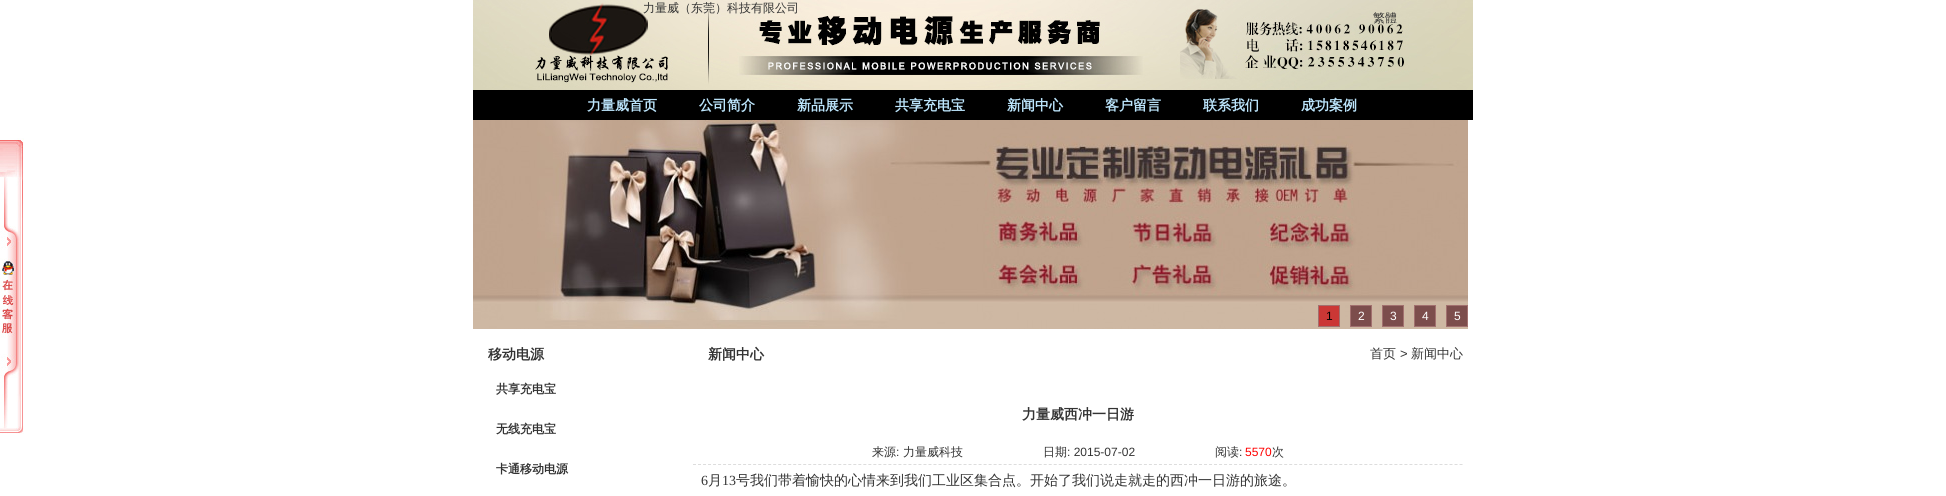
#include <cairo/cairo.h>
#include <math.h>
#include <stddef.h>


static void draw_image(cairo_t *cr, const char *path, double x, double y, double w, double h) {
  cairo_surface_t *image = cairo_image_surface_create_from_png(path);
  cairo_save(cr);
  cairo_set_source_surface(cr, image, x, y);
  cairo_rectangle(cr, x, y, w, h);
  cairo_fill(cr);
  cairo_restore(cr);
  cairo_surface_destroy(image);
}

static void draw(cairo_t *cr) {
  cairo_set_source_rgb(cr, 1, 1, 1);
  cairo_paint(cr);
  draw_image(cr, "images/1.png", 0, 138, 24, 296);
  draw_image(cr, "images/2.png", 473, 0, 1000, 90);
  cairo_set_source_rgb(cr, 0, 0, 0);
  cairo_rectangle(cr, 473, 90, 1000, 30);
  cairo_fill(cr);
  draw_image(cr, "images/3.png", 473, 120, 995, 209);
  cairo_set_source_rgb(cr, 203 / 255.0, 55 / 255.0, 53 / 255.0);
  cairo_rectangle(cr, 1318.5, 305.5, 21, 21);
  cairo_fill_preserve(cr);
  cairo_set_source_rgb(cr, 162 / 255.0, 112 / 255.0, 111 / 255.0);
  cairo_set_line_width(cr, 1);
  cairo_stroke(cr);
  cairo_set_source_rgb(cr, 124 / 255.0, 77 / 255.0, 76 / 255.0);
  cairo_rectangle(cr, 1350.5, 305.5, 21, 21);
  cairo_fill_preserve(cr);
  cairo_set_source_rgb(cr, 162 / 255.0, 112 / 255.0, 111 / 255.0);
  cairo_stroke(cr);
  cairo_set_source_rgb(cr, 124 / 255.0, 77 / 255.0, 76 / 255.0);
  cairo_rectangle(cr, 1382.5, 305.5, 21, 21);
  cairo_fill_preserve(cr);
  cairo_set_source_rgb(cr, 162 / 255.0, 112 / 255.0, 111 / 255.0);
  cairo_stroke(cr);
  cairo_set_source_rgb(cr, 124 / 255.0, 77 / 255.0, 76 / 255.0);
  cairo_rectangle(cr, 1414.5, 305.5, 21, 21);
  cairo_fill_preserve(cr);
  cairo_set_source_rgb(cr, 162 / 255.0, 112 / 255.0, 111 / 255.0);
  cairo_stroke(cr);
  cairo_set_source_rgb(cr, 124 / 255.0, 77 / 255.0, 76 / 255.0);
  cairo_rectangle(cr, 1446.5, 305.5, 21, 21);
  cairo_fill_preserve(cr);
  cairo_set_source_rgb(cr, 162 / 255.0, 112 / 255.0, 111 / 255.0);
  cairo_stroke(cr);
  cairo_new_path(cr);
  cairo_move_to(cr, 693, 464.5);
  cairo_line_to(cr, 1463, 464.5);
  cairo_set_source_rgb(cr, 221 / 255.0, 221 / 255.0, 221 / 255.0);
  cairo_set_dash(cr, (double[]){3, 2.01}, 2, 0);
  cairo_stroke(cr);
  cairo_select_font_face(cr, "WenQuanYi Zen Hei Medium", CAIRO_FONT_SLANT_NORMAL, CAIRO_FONT_WEIGHT_NORMAL);
  cairo_set_font_size(cr, 12);
  cairo_set_source_rgb(cr, 51 / 255.0, 51 / 255.0, 51 / 255.0);
  cairo_move_to(cr, 643, 12);
  cairo_show_text(cr, "力量威（东莞）科技有限公司");
  cairo_move_to(cr, 1373, 22);
  cairo_show_text(cr, "繁體");
  cairo_select_font_face(cr, "WenQuanYi Zen Hei", CAIRO_FONT_SLANT_NORMAL, CAIRO_FONT_WEIGHT_BOLD);
  cairo_set_font_size(cr, 14);
  cairo_set_source_rgb(cr, 188 / 255.0, 229 / 255.0, 252 / 255.0);
  cairo_move_to(cr, 587, 110);
  cairo_show_text(cr, "力量威首页");
  cairo_move_to(cr, 699, 110);
  cairo_show_text(cr, "公司简介");
  cairo_move_to(cr, 797, 110);
  cairo_show_text(cr, "新品展示");
  cairo_move_to(cr, 895, 110);
  cairo_show_text(cr, "共享充电宝");
  cairo_move_to(cr, 1007, 110);
  cairo_show_text(cr, "新闻中心");
  cairo_move_to(cr, 1105, 110);
  cairo_show_text(cr, "客户留言");
  cairo_move_to(cr, 1203, 110);
  cairo_show_text(cr, "联系我们");
  cairo_move_to(cr, 1301, 110);
  cairo_show_text(cr, "成功案例");
  cairo_select_font_face(cr, "Liberation Sans", CAIRO_FONT_SLANT_NORMAL, CAIRO_FONT_WEIGHT_NORMAL);
  cairo_set_font_size(cr, 12);
  cairo_set_source_rgb(cr, 0, 0, 0);
  cairo_move_to(cr, 1326, 320);
  cairo_show_text(cr, "1");
  cairo_set_source_rgb(cr, 1, 1, 1);
  cairo_move_to(cr, 1358, 320);
  cairo_show_text(cr, "2");
  cairo_move_to(cr, 1390, 320);
  cairo_show_text(cr, "3");
  cairo_move_to(cr, 1422, 320);
  cairo_show_text(cr, "4");
  cairo_move_to(cr, 1454, 320);
  cairo_show_text(cr, "5");
  cairo_select_font_face(cr, "WenQuanYi Zen Hei", CAIRO_FONT_SLANT_NORMAL, CAIRO_FONT_WEIGHT_BOLD);
  cairo_set_font_size(cr, 14);
  cairo_set_source_rgb(cr, 51 / 255.0, 51 / 255.0, 51 / 255.0);
  cairo_move_to(cr, 488, 359);
  cairo_show_text(cr, "移动电源");
  cairo_set_font_size(cr, 12);
  cairo_move_to(cr, 496, 393);
  cairo_show_text(cr, "共享充电宝");
  cairo_move_to(cr, 496, 433);
  cairo_show_text(cr, "无线充电宝");
  cairo_move_to(cr, 496, 473);
  cairo_show_text(cr, "卡通移动电源");
  cairo_set_font_size(cr, 14);
  cairo_move_to(cr, 708, 359);
  cairo_show_text(cr, "新闻中心");
  cairo_select_font_face(cr, "WenQuanYi Zen Hei Medium", CAIRO_FONT_SLANT_NORMAL, CAIRO_FONT_WEIGHT_NORMAL);
  cairo_set_font_size(cr, 13);
  cairo_move_to(cr, 1370, 358);
  cairo_show_text(cr, "首页");
  cairo_select_font_face(cr, "Liberation Sans", CAIRO_FONT_SLANT_NORMAL, CAIRO_FONT_WEIGHT_NORMAL);
  cairo_move_to(cr, 1400, 358);
  cairo_show_text(cr, ">");
  cairo_select_font_face(cr, "WenQuanYi Zen Hei Medium", CAIRO_FONT_SLANT_NORMAL, CAIRO_FONT_WEIGHT_NORMAL);
  cairo_move_to(cr, 1411, 358);
  cairo_show_text(cr, "新闻中心");
  cairo_select_font_face(cr, "WenQuanYi Zen Hei", CAIRO_FONT_SLANT_NORMAL, CAIRO_FONT_WEIGHT_BOLD);
  cairo_set_font_size(cr, 14);
  cairo_move_to(cr, 1022, 419);
  cairo_show_text(cr, "力量威西冲一日游");
  cairo_select_font_face(cr, "WenQuanYi Zen Hei Medium", CAIRO_FONT_SLANT_NORMAL, CAIRO_FONT_WEIGHT_NORMAL);
  cairo_set_font_size(cr, 12);
  cairo_move_to(cr, 872, 456);
  cairo_show_text(cr, "来源");
  cairo_select_font_face(cr, "Liberation Sans", CAIRO_FONT_SLANT_NORMAL, CAIRO_FONT_WEIGHT_NORMAL);
  cairo_move_to(cr, 896, 456);
  cairo_show_text(cr, ":");
  cairo_select_font_face(cr, "WenQuanYi Zen Hei Medium", CAIRO_FONT_SLANT_NORMAL, CAIRO_FONT_WEIGHT_NORMAL);
  cairo_move_to(cr, 903, 456);
  cairo_show_text(cr, "力量威科技");
  cairo_move_to(cr, 1043, 456);
  cairo_show_text(cr, "日期");
  cairo_select_font_face(cr, "Liberation Sans", CAIRO_FONT_SLANT_NORMAL, CAIRO_FONT_WEIGHT_NORMAL);
  cairo_move_to(cr, 1067, 456);
  cairo_show_text(cr, ": 2015-07-02");
  cairo_select_font_face(cr, "WenQuanYi Zen Hei Medium", CAIRO_FONT_SLANT_NORMAL, CAIRO_FONT_WEIGHT_NORMAL);
  cairo_move_to(cr, 1215, 456);
  cairo_show_text(cr, "阅读");
  cairo_select_font_face(cr, "Liberation Sans", CAIRO_FONT_SLANT_NORMAL, CAIRO_FONT_WEIGHT_NORMAL);
  cairo_move_to(cr, 1239, 456);
  cairo_show_text(cr, ":");
  cairo_set_source_rgb(cr, 1, 0, 0);
  cairo_move_to(cr, 1245, 456);
  cairo_show_text(cr, "5570");
  cairo_select_font_face(cr, "WenQuanYi Zen Hei Medium", CAIRO_FONT_SLANT_NORMAL, CAIRO_FONT_WEIGHT_NORMAL);
  cairo_set_source_rgb(cr, 51 / 255.0, 51 / 255.0, 51 / 255.0);
  cairo_move_to(cr, 1272, 456);
  cairo_show_text(cr, "次");
  cairo_select_font_face(cr, "Liberation Serif", CAIRO_FONT_SLANT_NORMAL, CAIRO_FONT_WEIGHT_NORMAL);
  cairo_set_font_size(cr, 14);
  cairo_move_to(cr, 701, 485);
  cairo_show_text(cr, "6");
  cairo_select_font_face(cr, "WenQuanYi Zen Hei Medium", CAIRO_FONT_SLANT_NORMAL, CAIRO_FONT_WEIGHT_NORMAL);
  cairo_move_to(cr, 708, 485);
  cairo_show_text(cr, "月");
  cairo_select_font_face(cr, "Liberation Serif", CAIRO_FONT_SLANT_NORMAL, CAIRO_FONT_WEIGHT_NORMAL);
  cairo_move_to(cr, 722, 485);
  cairo_show_text(cr, "13");
  cairo_select_font_face(cr, "WenQuanYi Zen Hei Medium", CAIRO_FONT_SLANT_NORMAL, CAIRO_FONT_WEIGHT_NORMAL);
  cairo_move_to(cr, 736, 485);
  cairo_show_text(cr, "号我们带着愉快的心情来到我们工业区集合点。开始了我们说走就走的西冲一日游的旅途。");
}

int main(void) {
  cairo_surface_t *surface = cairo_image_surface_create(CAIRO_FORMAT_RGB24, 1946, 496);
  cairo_t *cr = cairo_create(surface);
  cairo_font_options_t *options = cairo_font_options_create();
  cairo_font_options_set_hint_metrics(options, CAIRO_HINT_METRICS_OFF);
  cairo_font_options_set_hint_style(options, CAIRO_HINT_STYLE_NONE);
  cairo_set_font_options(cr, options);
  cairo_set_miter_limit(cr, 4);
  draw(cr);
  cairo_surface_write_to_png(surface, "out.png");
  cairo_font_options_destroy(options);
  cairo_destroy(cr);
  cairo_surface_destroy(surface);
  return 0;
}
